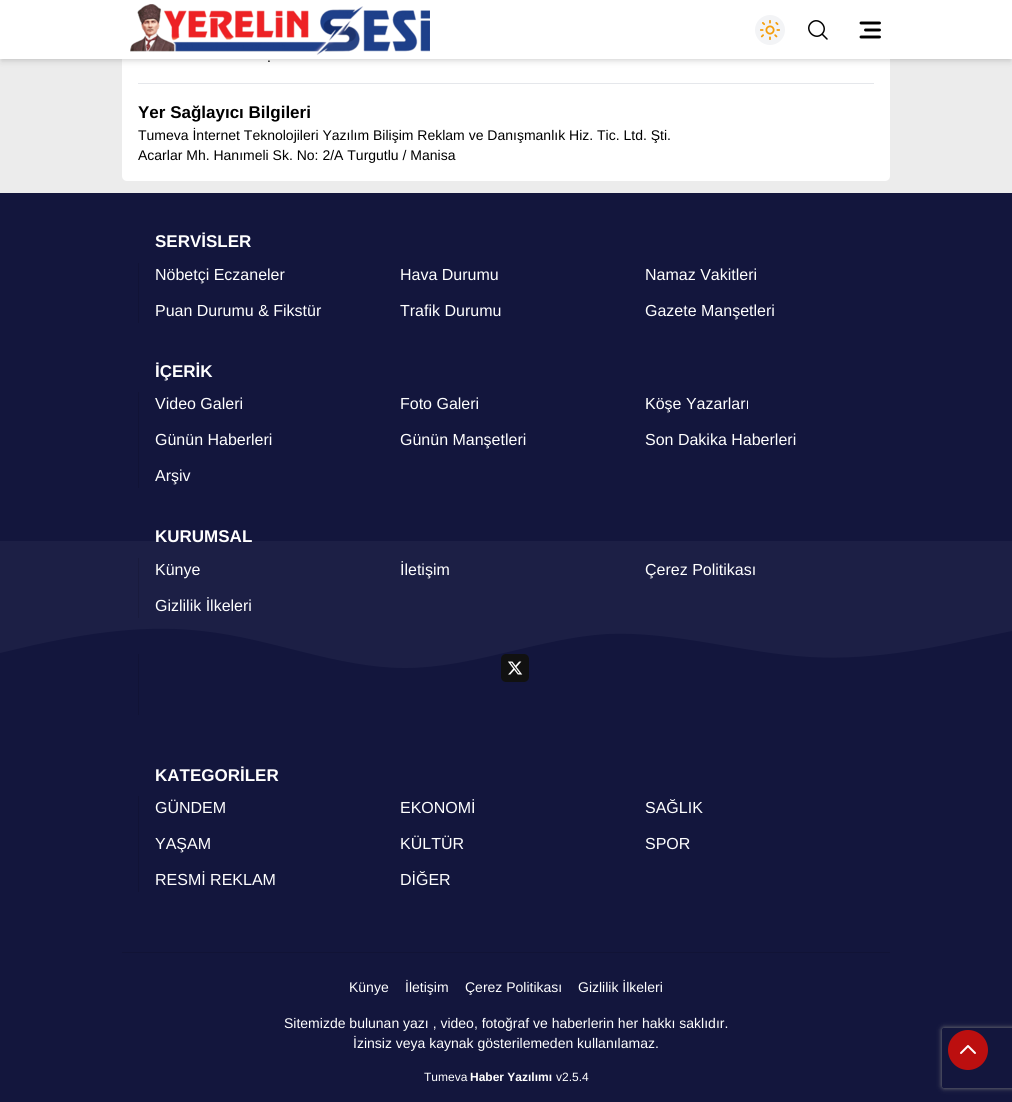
#include <cairo/cairo.h>
#include <math.h>
#include <stddef.h>


static void rounded_rect(cairo_t *cr, double x, double y, double w, double h, double r) {
  cairo_new_sub_path(cr);
  cairo_arc(cr, x + w - r, y + h - r, r, 0, M_PI / 2);
  cairo_arc(cr, x + r, y + h - r, r, M_PI / 2, M_PI);
  cairo_arc(cr, x + r, y + r, r, M_PI, 1.5 * M_PI);
  cairo_arc(cr, x + w - r, y + r, r, 1.5 * M_PI, 2 * M_PI);
  cairo_close_path(cr);
}

static void draw_shadow(cairo_t *cr, double x, double y, double w, double h, double r, double blur, double alpha) {
  cairo_push_group_with_content(cr, CAIRO_CONTENT_ALPHA);
  cairo_set_operator(cr, CAIRO_OPERATOR_SOURCE);
  for (int i = 15; i >= -15 && fmin(w, h) + blur * i / 3 > 0; i -= 2) {
    double e = blur * i / 6;
    cairo_set_source_rgba(cr, 0, 0, 0, alpha * erfc((i - 1) / 8.5) / 2);
    rounded_rect(cr, x - e, y - e, w + 2 * e, h + 2 * e, fmax(0, fmin(r + e + blur * .6, fmin(w, h) / 2 + e)));
    cairo_fill(cr);
  }
  cairo_pattern_t *soft = cairo_pop_group(cr);
  cairo_mask(cr, soft);
  cairo_pattern_destroy(soft);
}

static void draw_image(cairo_t *cr, const char *path, double x, double y, double w, double h) {
  cairo_surface_t *image = cairo_image_surface_create_from_png(path);
  cairo_save(cr);
  cairo_set_source_surface(cr, image, x, y);
  cairo_rectangle(cr, x, y, w, h);
  cairo_fill(cr);
  cairo_restore(cr);
  cairo_surface_destroy(image);
}

static void draw(cairo_t *cr) {
  cairo_set_source_rgb(cr, 236 / 255.0, 236 / 255.0, 236 / 255.0);
  cairo_paint(cr);
  cairo_set_source_rgb(cr, 1, 1, 1);
  rounded_rect(cr, 122, -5, 768, 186, 5);
  cairo_fill(cr);
  cairo_set_source_rgb(cr, 0, 0, 0);
  draw_shadow(cr, 2, 4, 1008, 55, 0, 2, 0.1);
  draw_shadow(cr, 1, 5, 1010, 57, 0, 3, 0.1);
  cairo_set_source_rgb(cr, 1, 1, 1);
  cairo_rectangle(cr, 0, 0, 1012, 59);
  cairo_fill(cr);
  draw_image(cr, "images/1.png", 130, 4, 300, 51);
  cairo_set_source_rgb(cr, 243 / 255.0, 244 / 255.0, 246 / 255.0);
  cairo_arc(cr, 770, 30, 15, 0, 2 * M_PI);
  cairo_fill(cr);
  draw_image(cr, "images/2.png", 760, 20, 20, 20);
  cairo_new_path(cr);
  cairo_move_to(cr, 827, 39);
  cairo_line_to(cr, 822, 34);
  cairo_move_to(cr, 822, 34);
  cairo_curve_to(cr, 829, 27, 818, 16, 811, 23);
  cairo_curve_to(cr, 804, 30, 815, 41, 822, 34);
  cairo_close_path(cr);
  cairo_set_source_rgb(cr, 0, 0, 0);
  cairo_set_line_width(cr, 1.5);
  cairo_set_line_cap(cr, CAIRO_LINE_CAP_ROUND);
  cairo_set_line_join(cr, CAIRO_LINE_JOIN_ROUND);
  cairo_stroke(cr);
  cairo_new_path(cr);
  cairo_move_to(cr, 879.5, 23);
  cairo_line_to(cr, 861, 23);
  cairo_move_to(cr, 879.5, 30);
  cairo_line_to(cr, 865.5, 30);
  cairo_move_to(cr, 879.5, 37);
  cairo_line_to(cr, 861, 37);
  cairo_set_line_width(cr, 2.9);
  cairo_stroke(cr);
  cairo_set_source_rgb(cr, 229 / 255.0, 231 / 255.0, 235 / 255.0);
  cairo_rectangle(cr, 138, 83, 736, 1);
  cairo_fill(cr);
  cairo_set_source_rgb(cr, 19 / 255.0, 22 / 255.0, 61 / 255.0);
  cairo_rectangle(cr, 0, 193, 1012, 909);
  cairo_fill(cr);
  cairo_set_source_rgb(cr, 17 / 255.0, 19 / 255.0, 54 / 255.0);
  cairo_rectangle(cr, 138, 263, 1, 60);
  cairo_fill(cr);
  cairo_rectangle(cr, 138, 392, 1, 96);
  cairo_fill(cr);
  cairo_set_source_rgb(cr, 28 / 255.0, 31 / 255.0, 69 / 255.0);
  cairo_new_path(cr);
  cairo_move_to(cr, 0, 653);
  cairo_line_to(cr, 34, 645);
  cairo_curve_to(cr, 67, 638, 135, 623, 202, 631);
  cairo_curve_to(cr, 270, 638, 337, 668, 405, 668);
  cairo_curve_to(cr, 472, 668, 540, 638, 607, 634);
  cairo_curve_to(cr, 675, 631, 742, 653, 810, 657);
  cairo_curve_to(cr, 877, 661, 945, 645, 978, 638);
  cairo_line_to(cr, 1012, 631);
  cairo_line_to(cr, 1012, 541);
  cairo_line_to(cr, 0, 541);
  cairo_close_path(cr);
  cairo_fill(cr);
  cairo_set_source_rgb(cr, 25 / 255.0, 27 / 255.0, 61 / 255.0);
  cairo_rectangle(cr, 138, 558, 1, 60);
  cairo_fill(cr);
  cairo_set_source_rgb(cr, 17 / 255.0, 19 / 255.0, 54 / 255.0);
  cairo_rectangle(cr, 138, 654, 1, 61);
  cairo_fill(cr);
  cairo_set_source_rgb(cr, 17 / 255.0, 17 / 255.0, 17 / 255.0);
  rounded_rect(cr, 501, 654, 28, 28, 5);
  cairo_fill(cr);
  draw_image(cr, "images/3.png", 508, 661, 15, 14);
  cairo_set_source_rgb(cr, 17 / 255.0, 19 / 255.0, 54 / 255.0);
  cairo_rectangle(cr, 138, 796, 1, 96);
  cairo_fill(cr);
  cairo_rectangle(cr, 122, 952, 768, 1);
  cairo_fill(cr);
  cairo_save(cr);
  cairo_set_fill_rule(cr, CAIRO_FILL_RULE_EVEN_ODD);
  cairo_new_path(cr);
  cairo_move_to(cr, 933, 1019);
  cairo_line_to(cr, 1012, 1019);
  cairo_line_to(cr, 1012, 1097);
  cairo_line_to(cr, 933, 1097);
  cairo_close_path(cr);
  cairo_move_to(cr, 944, 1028);
  cairo_line_to(cr, 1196, 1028);
  cairo_curve_to(cr, 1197, 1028, 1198, 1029, 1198, 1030);
  cairo_line_to(cr, 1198, 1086);
  cairo_curve_to(cr, 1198, 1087, 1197, 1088, 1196, 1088);
  cairo_line_to(cr, 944, 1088);
  cairo_curve_to(cr, 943, 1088, 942, 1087, 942, 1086);
  cairo_line_to(cr, 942, 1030);
  cairo_curve_to(cr, 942, 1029, 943, 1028, 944, 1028);
  cairo_close_path(cr);
  cairo_clip(cr);
  cairo_set_source_rgb(cr, 128 / 255.0, 128 / 255.0, 128 / 255.0);
  draw_shadow(cr, 942, 1028, 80, 60, 2, 2.5, 1);
  cairo_restore(cr);
  cairo_set_source_rgb(cr, 188 / 255.0, 15 / 255.0, 15 / 255.0);
  cairo_arc(cr, 968, 1050, 20, 0, 2 * M_PI);
  cairo_fill(cr);
  cairo_new_path(cr);
  cairo_move_to(cr, 961, 1053);
  cairo_line_to(cr, 968, 1046);
  cairo_line_to(cr, 975, 1053);
  cairo_set_source_rgb(cr, 1, 1, 1);
  cairo_set_line_width(cr, 2);
  cairo_stroke(cr);
  cairo_select_font_face(cr, "Liberation Sans", CAIRO_FONT_SLANT_NORMAL, CAIRO_FONT_WEIGHT_NORMAL);
  cairo_set_font_size(cr, 14);
  cairo_set_source_rgb(cr, 0, 0, 0);
  cairo_move_to(cr, 267, 62);
  cairo_show_text(cr, ".");
  cairo_select_font_face(cr, "Liberation Sans", CAIRO_FONT_SLANT_NORMAL, CAIRO_FONT_WEIGHT_BOLD);
  cairo_set_font_size(cr, 17);
  cairo_move_to(cr, 138, 118);
  cairo_show_text(cr, "Yer Sağlayıcı Bilgileri");
  cairo_select_font_face(cr, "Liberation Sans", CAIRO_FONT_SLANT_NORMAL, CAIRO_FONT_WEIGHT_NORMAL);
  cairo_set_font_size(cr, 14);
  cairo_move_to(cr, 138, 140);
  cairo_show_text(cr, "Tumeva İnternet Teknolojileri Yazılım Bilişim Reklam ve Danışmanlık Hiz. Tic. Ltd. Şti.");
  cairo_move_to(cr, 138, 160);
  cairo_show_text(cr, "Acarlar Mh. Hanımeli Sk. No: 2/A Turgutlu / Manisa");
  cairo_select_font_face(cr, "Liberation Sans", CAIRO_FONT_SLANT_NORMAL, CAIRO_FONT_WEIGHT_BOLD);
  cairo_set_font_size(cr, 17);
  cairo_set_source_rgb(cr, 1, 1, 1);
  cairo_move_to(cr, 155, 247);
  cairo_show_text(cr, "SERVİSLER");
  cairo_select_font_face(cr, "Liberation Sans", CAIRO_FONT_SLANT_NORMAL, CAIRO_FONT_WEIGHT_NORMAL);
  cairo_set_font_size(cr, 16);
  cairo_move_to(cr, 155, 280);
  cairo_show_text(cr, "Nöbetçi Eczaneler");
  cairo_move_to(cr, 400, 280);
  cairo_show_text(cr, "Hava Durumu");
  cairo_move_to(cr, 645, 280);
  cairo_show_text(cr, "Namaz Vakitleri");
  cairo_move_to(cr, 155, 316);
  cairo_show_text(cr, "Puan Durumu & Fikstür");
  cairo_move_to(cr, 400, 316);
  cairo_show_text(cr, "Trafik Durumu");
  cairo_move_to(cr, 645, 316);
  cairo_show_text(cr, "Gazete Manşetleri");
  cairo_select_font_face(cr, "Liberation Sans", CAIRO_FONT_SLANT_NORMAL, CAIRO_FONT_WEIGHT_BOLD);
  cairo_set_font_size(cr, 17);
  cairo_move_to(cr, 155, 377);
  cairo_show_text(cr, "İÇERİK");
  cairo_select_font_face(cr, "Liberation Sans", CAIRO_FONT_SLANT_NORMAL, CAIRO_FONT_WEIGHT_NORMAL);
  cairo_set_font_size(cr, 16);
  cairo_move_to(cr, 155, 409);
  cairo_show_text(cr, "Video Galeri");
  cairo_move_to(cr, 400, 409);
  cairo_show_text(cr, "Foto Galeri");
  cairo_move_to(cr, 645, 409);
  cairo_show_text(cr, "Köşe Yazarları");
  cairo_move_to(cr, 155, 445);
  cairo_show_text(cr, "Günün Haberleri");
  cairo_move_to(cr, 400, 445);
  cairo_show_text(cr, "Günün Manşetleri");
  cairo_move_to(cr, 645, 445);
  cairo_show_text(cr, "Son Dakika Haberleri");
  cairo_move_to(cr, 155, 481);
  cairo_show_text(cr, "Arşiv");
  cairo_select_font_face(cr, "Liberation Sans", CAIRO_FONT_SLANT_NORMAL, CAIRO_FONT_WEIGHT_BOLD);
  cairo_set_font_size(cr, 17);
  cairo_move_to(cr, 155, 542);
  cairo_show_text(cr, "KURUMSAL");
  cairo_select_font_face(cr, "Liberation Sans", CAIRO_FONT_SLANT_NORMAL, CAIRO_FONT_WEIGHT_NORMAL);
  cairo_set_font_size(cr, 16);
  cairo_move_to(cr, 155, 575);
  cairo_show_text(cr, "Künye");
  cairo_move_to(cr, 400, 575);
  cairo_show_text(cr, "İletişim");
  cairo_move_to(cr, 645, 575);
  cairo_show_text(cr, "Çerez Politikası");
  cairo_move_to(cr, 155, 611);
  cairo_show_text(cr, "Gizlilik İlkeleri");
  cairo_select_font_face(cr, "Liberation Sans", CAIRO_FONT_SLANT_NORMAL, CAIRO_FONT_WEIGHT_BOLD);
  cairo_set_font_size(cr, 17);
  cairo_move_to(cr, 155, 781);
  cairo_show_text(cr, "KATEGORİLER");
  cairo_select_font_face(cr, "Liberation Sans", CAIRO_FONT_SLANT_NORMAL, CAIRO_FONT_WEIGHT_NORMAL);
  cairo_set_font_size(cr, 16);
  cairo_move_to(cr, 155, 813);
  cairo_show_text(cr, "GÜNDEM");
  cairo_move_to(cr, 400, 813);
  cairo_show_text(cr, "EKONOMİ");
  cairo_move_to(cr, 645, 813);
  cairo_show_text(cr, "SAĞLIK");
  cairo_move_to(cr, 155, 849);
  cairo_show_text(cr, "YAŞAM");
  cairo_move_to(cr, 400, 849);
  cairo_show_text(cr, "KÜLTÜR");
  cairo_move_to(cr, 645, 849);
  cairo_show_text(cr, "SPOR");
  cairo_move_to(cr, 155, 885);
  cairo_show_text(cr, "RESMİ REKLAM");
  cairo_move_to(cr, 400, 885);
  cairo_show_text(cr, "DİĞER");
  cairo_set_font_size(cr, 14);
  cairo_move_to(cr, 349, 992);
  cairo_show_text(cr, "Künye");
  cairo_move_to(cr, 405, 992);
  cairo_show_text(cr, "İletişim");
  cairo_move_to(cr, 465, 992);
  cairo_show_text(cr, "Çerez Politikası");
  cairo_move_to(cr, 578, 992);
  cairo_show_text(cr, "Gizlilik İlkeleri");
  cairo_move_to(cr, 284, 1028);
  cairo_show_text(cr, "Sitemizde bulunan yazı , video, fotoğraf ve haberlerin her hakkı saklıdır.");
  cairo_move_to(cr, 353, 1048);
  cairo_show_text(cr, "İzinsiz veya kaynak gösterilemeden kullanılamaz.");
  cairo_set_font_size(cr, 12);
  cairo_move_to(cr, 424, 1081);
  cairo_show_text(cr, "Tumeva");
  cairo_select_font_face(cr, "Liberation Sans", CAIRO_FONT_SLANT_NORMAL, CAIRO_FONT_WEIGHT_BOLD);
  cairo_move_to(cr, 470, 1081);
  cairo_show_text(cr, "Haber Yazılımı");
  cairo_select_font_face(cr, "Liberation Sans", CAIRO_FONT_SLANT_NORMAL, CAIRO_FONT_WEIGHT_NORMAL);
  cairo_move_to(cr, 556, 1081);
  cairo_show_text(cr, "v2.5.4");
}

int main(void) {
  cairo_surface_t *surface = cairo_image_surface_create(CAIRO_FORMAT_RGB24, 1012, 1102);
  cairo_t *cr = cairo_create(surface);
  cairo_font_options_t *options = cairo_font_options_create();
  cairo_font_options_set_hint_metrics(options, CAIRO_HINT_METRICS_OFF);
  cairo_font_options_set_hint_style(options, CAIRO_HINT_STYLE_NONE);
  cairo_set_font_options(cr, options);
  cairo_set_miter_limit(cr, 4);
  draw(cr);
  cairo_surface_write_to_png(surface, "out.png");
  cairo_font_options_destroy(options);
  cairo_destroy(cr);
  cairo_surface_destroy(surface);
  return 0;
}
